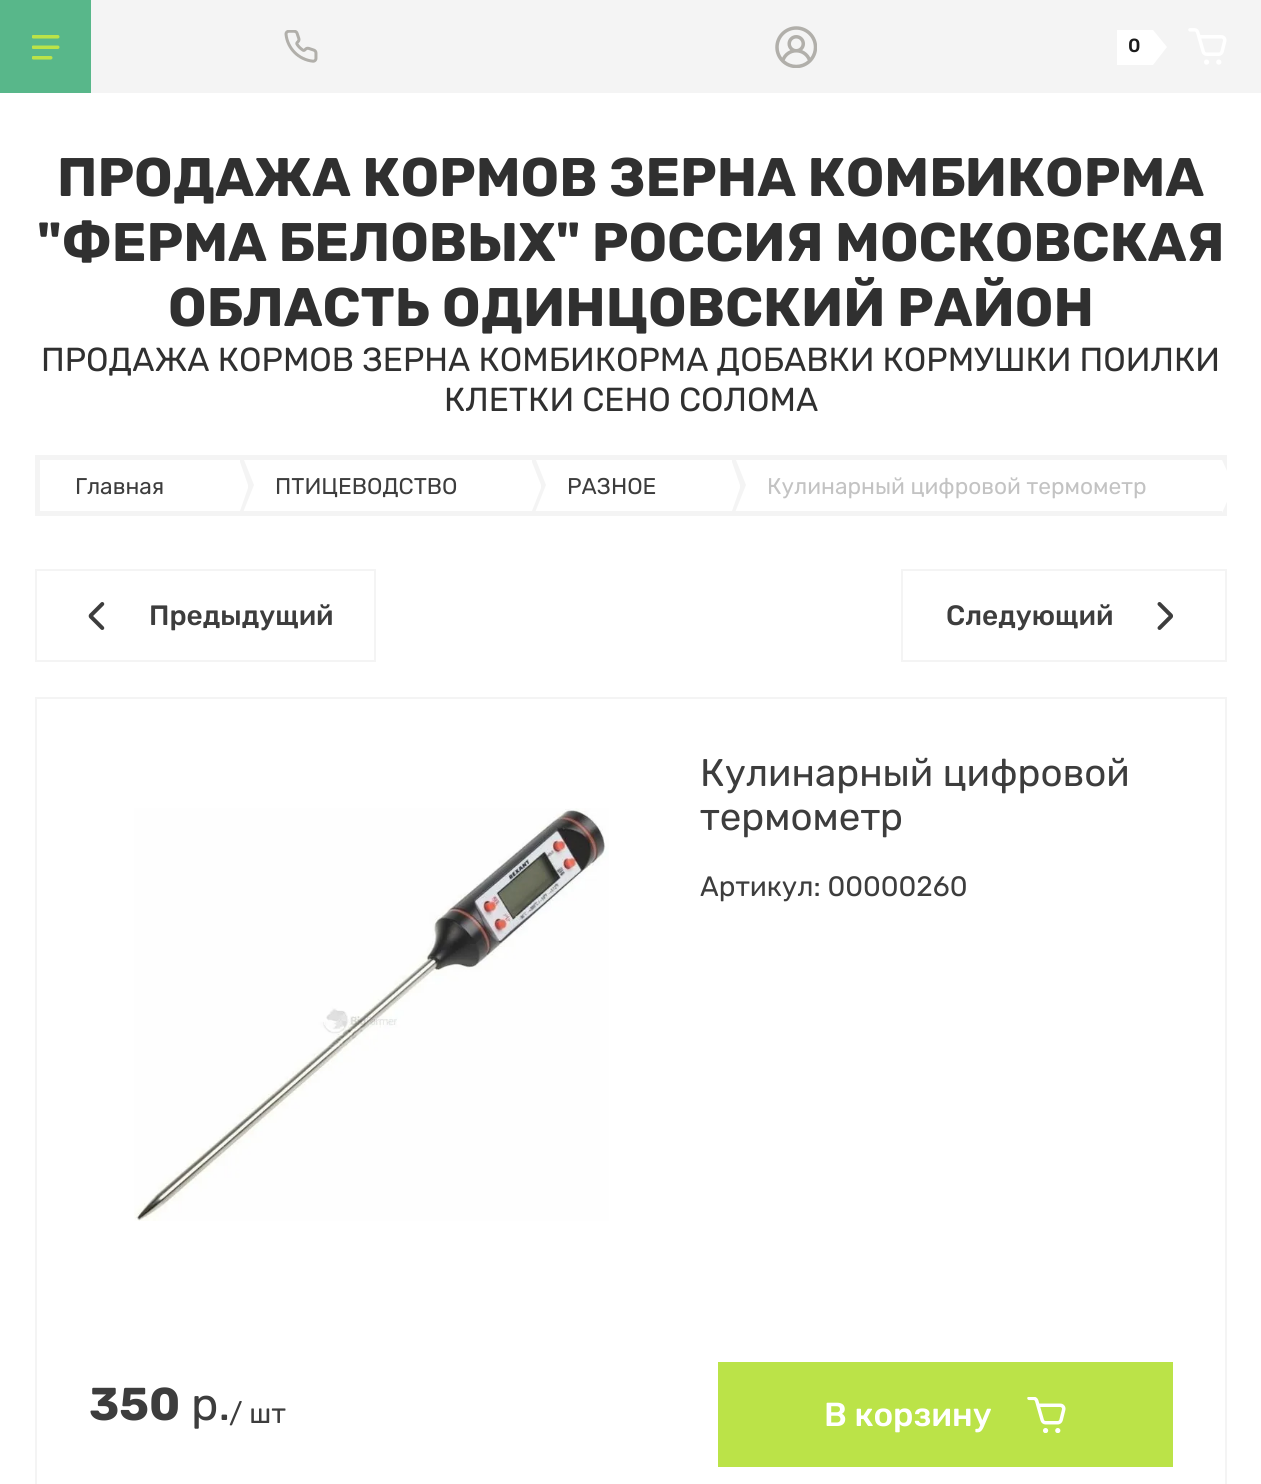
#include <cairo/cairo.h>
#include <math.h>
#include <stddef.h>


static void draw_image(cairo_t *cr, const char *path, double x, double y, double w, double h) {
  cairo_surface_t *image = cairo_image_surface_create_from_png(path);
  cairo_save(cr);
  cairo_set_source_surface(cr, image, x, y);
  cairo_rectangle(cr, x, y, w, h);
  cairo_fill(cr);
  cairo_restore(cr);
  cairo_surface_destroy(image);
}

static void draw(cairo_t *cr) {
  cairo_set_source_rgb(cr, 1, 1, 1);
  cairo_paint(cr);
  cairo_set_source_rgb(cr, 88 / 255.0, 183 / 255.0, 138 / 255.0);
  cairo_rectangle(cr, 0, 0, 91, 93);
  cairo_fill(cr);
  draw_image(cr, "images/1.png", 32, 35, 28, 25);
  cairo_set_source_rgb(cr, 244 / 255.0, 244 / 255.0, 244 / 255.0);
  cairo_rectangle(cr, 91, 0, 1170, 93);
  cairo_fill(cr);
  draw_image(cr, "images/2.png", 284, 30, 34, 33);
  draw_image(cr, "images/3.png", 775, 26, 42, 42);
  cairo_set_source_rgb(cr, 1, 1, 1);
  cairo_rectangle(cr, 1117, 30, 36, 35);
  cairo_fill(cr);
  cairo_new_path(cr);
  cairo_move_to(cr, 1153, 65);
  cairo_line_to(cr, 1153, 30);
  cairo_line_to(cr, 1167, 47);
  cairo_close_path(cr);
  cairo_fill(cr);
  draw_image(cr, "images/4.png", 1188, 28, 39, 37);
  cairo_set_source_rgb(cr, 244 / 255.0, 244 / 255.0, 244 / 255.0);
  cairo_rectangle(cr, 35, 455, 1192, 61);
  cairo_fill(cr);
  cairo_set_source_rgb(cr, 1, 1, 1);
  cairo_rectangle(cr, 40, 460, 200, 51);
  cairo_fill(cr);
  cairo_rectangle(cr, 243, 460, 289, 51);
  cairo_fill(cr);
  cairo_save(cr);
  cairo_rectangle(cr, 35, 455, 1192, 61);
  cairo_clip(cr);
  cairo_set_source_rgb(cr, 244 / 255.0, 244 / 255.0, 244 / 255.0);
  cairo_new_path(cr);
  cairo_move_to(cr, 240, 520);
  cairo_line_to(cr, 240, 450);
  cairo_line_to(cr, 254, 485);
  cairo_close_path(cr);
  cairo_fill(cr);
  cairo_restore(cr);
  cairo_new_path(cr);
  cairo_move_to(cr, 240, 511);
  cairo_line_to(cr, 240, 462);
  cairo_line_to(cr, 248, 485);
  cairo_line_to(cr, 248, 488);
  cairo_close_path(cr);
  cairo_fill(cr);
  cairo_rectangle(cr, 535, 460, 197, 51);
  cairo_fill(cr);
  cairo_save(cr);
  cairo_rectangle(cr, 35, 455, 1192, 61);
  cairo_clip(cr);
  cairo_set_source_rgb(cr, 244 / 255.0, 244 / 255.0, 244 / 255.0);
  cairo_new_path(cr);
  cairo_move_to(cr, 532, 520);
  cairo_line_to(cr, 532, 450);
  cairo_line_to(cr, 546, 485);
  cairo_close_path(cr);
  cairo_fill(cr);
  cairo_restore(cr);
  cairo_new_path(cr);
  cairo_move_to(cr, 532, 511);
  cairo_line_to(cr, 532, 462);
  cairo_line_to(cr, 541, 485);
  cairo_line_to(cr, 541, 488);
  cairo_close_path(cr);
  cairo_fill(cr);
  cairo_rectangle(cr, 735, 460, 487, 51);
  cairo_fill(cr);
  cairo_save(cr);
  cairo_rectangle(cr, 35, 455, 1192, 61);
  cairo_clip(cr);
  cairo_set_source_rgb(cr, 244 / 255.0, 244 / 255.0, 244 / 255.0);
  cairo_new_path(cr);
  cairo_move_to(cr, 732, 520);
  cairo_line_to(cr, 732, 450);
  cairo_line_to(cr, 746, 485);
  cairo_close_path(cr);
  cairo_fill(cr);
  cairo_restore(cr);
  cairo_new_path(cr);
  cairo_move_to(cr, 732, 511);
  cairo_line_to(cr, 732, 462);
  cairo_line_to(cr, 740, 485);
  cairo_line_to(cr, 740, 488);
  cairo_close_path(cr);
  cairo_fill(cr);
  cairo_save(cr);
  cairo_rectangle(cr, 35, 455, 1192, 61);
  cairo_clip(cr);
  cairo_new_path(cr);
  cairo_move_to(cr, 1222, 513);
  cairo_line_to(cr, 1222, 460);
  cairo_line_to(cr, 1234, 486);
  cairo_close_path(cr);
  cairo_fill(cr);
  cairo_restore(cr);
  cairo_rectangle(cr, 36, 570, 339, 91);
  cairo_set_source_rgb(cr, 244 / 255.0, 244 / 255.0, 244 / 255.0);
  cairo_stroke(cr);
  draw_image(cr, "images/5.png", 88, 602, 17, 28);
  cairo_rectangle(cr, 902, 570, 324, 91);
  cairo_stroke(cr);
  draw_image(cr, "images/6.png", 1157, 602, 16, 28);
  cairo_rectangle(cr, 36, 698, 1190, 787);
  cairo_stroke(cr);
  draw_image(cr, "images/7.png", 134, 808, 475, 413);
  cairo_set_source_rgb(cr, 187 / 255.0, 227 / 255.0, 72 / 255.0);
  cairo_rectangle(cr, 718, 1362, 455, 105);
  cairo_fill(cr);
  draw_image(cr, "images/8.png", 1027, 1397, 39, 36);
  cairo_select_font_face(cr, "Rubik Medium", CAIRO_FONT_SLANT_NORMAL, CAIRO_FONT_WEIGHT_NORMAL);
  cairo_set_font_size(cr, 19);
  cairo_set_source_rgb(cr, 28 / 255.0, 28 / 255.0, 28 / 255.0);
  cairo_move_to(cr, 1128, 52);
  cairo_show_text(cr, "0");
  cairo_select_font_face(cr, "Rubik", CAIRO_FONT_SLANT_NORMAL, CAIRO_FONT_WEIGHT_BOLD);
  cairo_set_font_size(cr, 54.25);
  cairo_set_source_rgb(cr, 48 / 255.0, 48 / 255.0, 48 / 255.0);
  cairo_move_to(cr, 57, 196);
  cairo_show_text(cr, "ПРОДАЖА КОРМОВ ЗЕРНА КОМБИКОРМА");
  cairo_move_to(cr, 37, 261);
  cairo_show_text(cr, "\"ФЕРМА БЕЛОВЫХ\" РОССИЯ МОСКОВСКАЯ");
  cairo_move_to(cr, 168, 326);
  cairo_show_text(cr, "ОБЛАСТЬ ОДИНЦОВСКИЙ РАЙОН");
  cairo_select_font_face(cr, "Rubik", CAIRO_FONT_SLANT_NORMAL, CAIRO_FONT_WEIGHT_NORMAL);
  cairo_set_font_size(cr, 33.25);
  cairo_move_to(cr, 41, 371);
  cairo_show_text(cr, "ПРОДАЖА КОРМОВ ЗЕРНА КОМБИКОРМА ДОБАВКИ КОРМУШКИ ПОИЛКИ");
  cairo_move_to(cr, 444, 411);
  cairo_show_text(cr, "КЛЕТКИ СЕНО СОЛОМА");
  cairo_set_font_size(cr, 22.75);
  cairo_set_source_rgb(cr, 61 / 255.0, 61 / 255.0, 61 / 255.0);
  cairo_move_to(cr, 75, 494);
  cairo_show_text(cr, "Главная");
  cairo_move_to(cr, 275, 494);
  cairo_show_text(cr, "ПТИЦЕВОДСТВО");
  cairo_move_to(cr, 567, 494);
  cairo_show_text(cr, "РАЗНОЕ");
  cairo_set_source_rgb(cr, 195 / 255.0, 195 / 255.0, 195 / 255.0);
  cairo_move_to(cr, 767, 494);
  cairo_show_text(cr, "Кулинарный цифровой термометр");
  cairo_select_font_face(cr, "Rubik Medium", CAIRO_FONT_SLANT_NORMAL, CAIRO_FONT_WEIGHT_NORMAL);
  cairo_set_font_size(cr, 28);
  cairo_set_source_rgb(cr, 61 / 255.0, 61 / 255.0, 61 / 255.0);
  cairo_move_to(cr, 149, 625);
  cairo_show_text(cr, "Предыдущий");
  cairo_move_to(cr, 946, 625);
  cairo_show_text(cr, "Следующий");
  cairo_select_font_face(cr, "Rubik", CAIRO_FONT_SLANT_NORMAL, CAIRO_FONT_WEIGHT_NORMAL);
  cairo_set_font_size(cr, 38.5);
  cairo_move_to(cr, 700, 786);
  cairo_show_text(cr, "Кулинарный цифровой");
  cairo_move_to(cr, 700, 830);
  cairo_show_text(cr, "термометр");
  cairo_set_font_size(cr, 28);
  cairo_move_to(cr, 700, 896);
  cairo_show_text(cr, "Артикул: 00000260");
  cairo_select_font_face(cr, "Rubik", CAIRO_FONT_SLANT_NORMAL, CAIRO_FONT_WEIGHT_BOLD);
  cairo_set_font_size(cr, 46);
  cairo_move_to(cr, 89, 1420);
  cairo_show_text(cr, "350");
  cairo_select_font_face(cr, "Rubik", CAIRO_FONT_SLANT_NORMAL, CAIRO_FONT_WEIGHT_NORMAL);
  cairo_move_to(cr, 191, 1420);
  cairo_show_text(cr, "р.");
  cairo_set_font_size(cr, 28);
  cairo_move_to(cr, 229, 1423);
  cairo_show_text(cr, "/ шт");
  cairo_select_font_face(cr, "Rubik Medium", CAIRO_FONT_SLANT_NORMAL, CAIRO_FONT_WEIGHT_NORMAL);
  cairo_set_font_size(cr, 33.25);
  cairo_set_source_rgb(cr, 1, 1, 1);
  cairo_move_to(cr, 824, 1426);
  cairo_show_text(cr, "В корзину");
}

int main(void) {
  cairo_surface_t *surface = cairo_image_surface_create(CAIRO_FORMAT_RGB24, 1261, 1484);
  cairo_t *cr = cairo_create(surface);
  cairo_font_options_t *options = cairo_font_options_create();
  cairo_font_options_set_hint_metrics(options, CAIRO_HINT_METRICS_OFF);
  cairo_font_options_set_hint_style(options, CAIRO_HINT_STYLE_NONE);
  cairo_set_font_options(cr, options);
  cairo_set_miter_limit(cr, 4);
  draw(cr);
  cairo_surface_write_to_png(surface, "out.png");
  cairo_font_options_destroy(options);
  cairo_destroy(cr);
  cairo_surface_destroy(surface);
  return 0;
}
